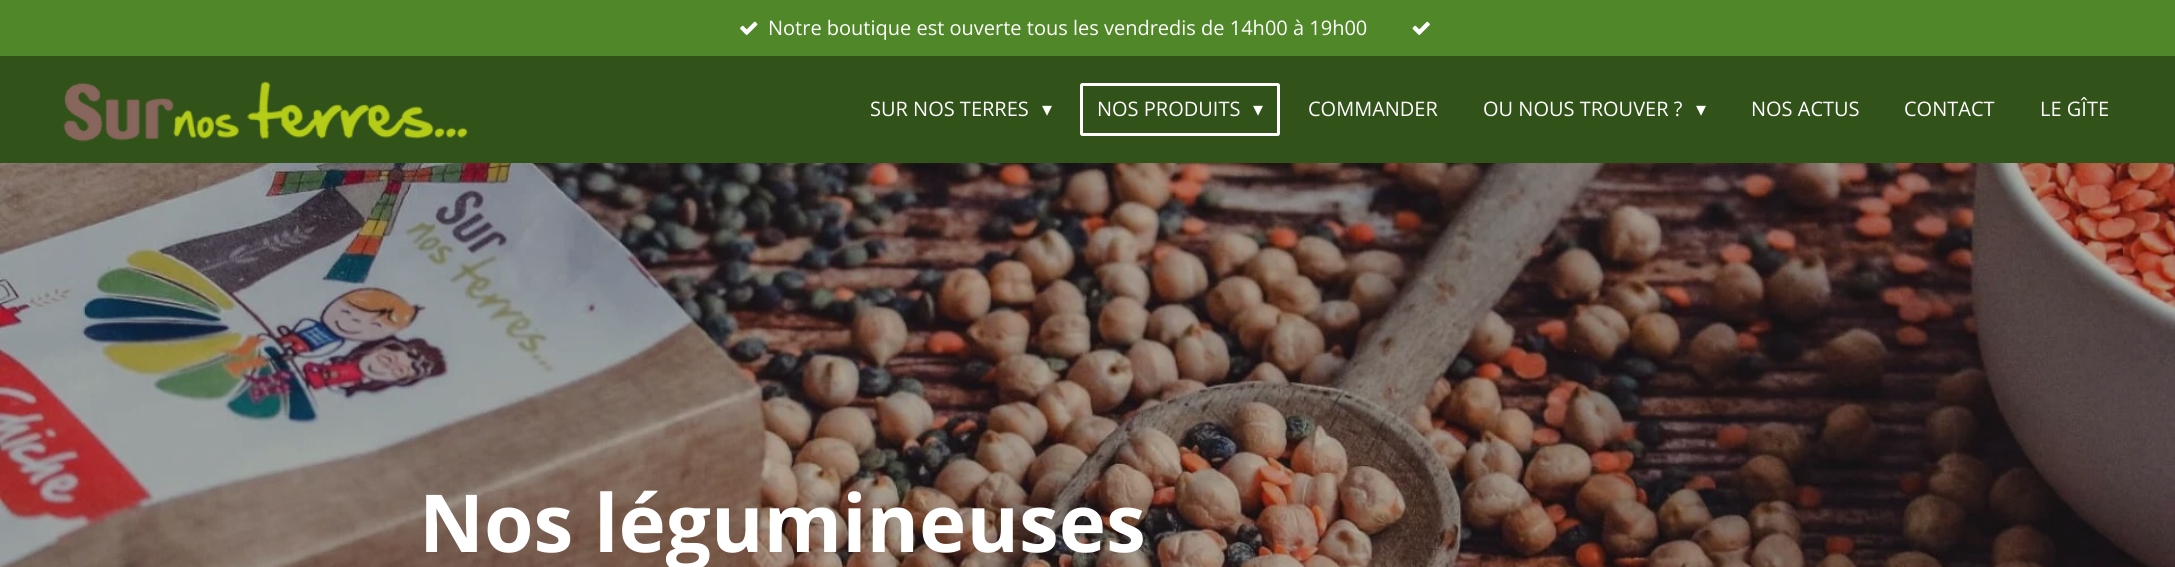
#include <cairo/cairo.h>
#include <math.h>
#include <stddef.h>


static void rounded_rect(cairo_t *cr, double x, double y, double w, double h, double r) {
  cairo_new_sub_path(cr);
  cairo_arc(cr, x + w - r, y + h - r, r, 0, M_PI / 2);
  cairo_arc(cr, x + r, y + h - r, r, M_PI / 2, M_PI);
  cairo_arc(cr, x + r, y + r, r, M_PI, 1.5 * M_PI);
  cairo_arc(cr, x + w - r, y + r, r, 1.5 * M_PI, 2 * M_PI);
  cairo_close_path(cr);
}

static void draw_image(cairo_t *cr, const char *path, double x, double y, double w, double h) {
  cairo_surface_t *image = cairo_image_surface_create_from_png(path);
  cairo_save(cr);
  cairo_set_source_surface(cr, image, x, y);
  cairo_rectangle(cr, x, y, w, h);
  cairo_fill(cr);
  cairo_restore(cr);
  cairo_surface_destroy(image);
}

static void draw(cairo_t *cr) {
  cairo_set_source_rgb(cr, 1, 1, 1);
  cairo_paint(cr);
  cairo_set_source_rgb(cr, 49 / 255.0, 82 / 255.0, 25 / 255.0);
  cairo_rectangle(cr, 0, 56, 2175, 107);
  cairo_fill(cr);
  cairo_set_source_rgb(cr, 80 / 255.0, 135 / 255.0, 41 / 255.0);
  cairo_rectangle(cr, 0, 0, 2175, 56);
  cairo_fill(cr);
  draw_image(cr, "images/1.png", 740, 21, 18, 14);
  draw_image(cr, "images/2.png", 1412, 21, 18, 14);
  draw_image(cr, "images/3.png", 63, 81, 405, 61);
  rounded_rect(cr, 1081.5, 84.5, 197, 50, 1);
  cairo_set_source_rgb(cr, 1, 1, 1);
  cairo_set_line_width(cr, 3);
  cairo_stroke(cr);
  draw_image(cr, "images/4.png", 0, 163, 2175, 404);
  cairo_select_font_face(cr, "Open Sans", CAIRO_FONT_SLANT_NORMAL, CAIRO_FONT_WEIGHT_NORMAL);
  cairo_set_font_size(cr, 20);
  cairo_move_to(cr, 768, 35);
  cairo_show_text(cr, "Notre boutique est ouverte tous les vendredis de 14h00 à 19h00");
  cairo_move_to(cr, 870, 116);
  cairo_show_text(cr, "SUR NOS TERRES");
  cairo_select_font_face(cr, "DejaVu Sans", CAIRO_FONT_SLANT_NORMAL, CAIRO_FONT_WEIGHT_NORMAL);
  cairo_move_to(cr, 1042, 116);
  cairo_show_text(cr, "▾");
  cairo_select_font_face(cr, "Open Sans", CAIRO_FONT_SLANT_NORMAL, CAIRO_FONT_WEIGHT_NORMAL);
  cairo_move_to(cr, 1097, 116);
  cairo_show_text(cr, "NOS PRODUITS");
  cairo_select_font_face(cr, "DejaVu Sans", CAIRO_FONT_SLANT_NORMAL, CAIRO_FONT_WEIGHT_NORMAL);
  cairo_move_to(cr, 1253, 116);
  cairo_show_text(cr, "▾");
  cairo_select_font_face(cr, "Open Sans", CAIRO_FONT_SLANT_NORMAL, CAIRO_FONT_WEIGHT_NORMAL);
  cairo_move_to(cr, 1308, 116);
  cairo_show_text(cr, "COMMANDER");
  cairo_move_to(cr, 1483, 116);
  cairo_show_text(cr, "OU NOUS TROUVER ?");
  cairo_select_font_face(cr, "DejaVu Sans", CAIRO_FONT_SLANT_NORMAL, CAIRO_FONT_WEIGHT_NORMAL);
  cairo_move_to(cr, 1696, 116);
  cairo_show_text(cr, "▾");
  cairo_select_font_face(cr, "Open Sans", CAIRO_FONT_SLANT_NORMAL, CAIRO_FONT_WEIGHT_NORMAL);
  cairo_move_to(cr, 1751, 116);
  cairo_show_text(cr, "NOS ACTUS");
  cairo_move_to(cr, 1904, 116);
  cairo_show_text(cr, "CONTACT");
  cairo_move_to(cr, 2040, 116);
  cairo_show_text(cr, "LE GÎTE");
  cairo_select_font_face(cr, "Open Sans", CAIRO_FONT_SLANT_NORMAL, CAIRO_FONT_WEIGHT_BOLD);
  cairo_set_font_size(cr, 80);
  cairo_move_to(cr, 419, 552);
  cairo_show_text(cr, "Nos légumineuses");
}

int main(void) {
  cairo_surface_t *surface = cairo_image_surface_create(CAIRO_FORMAT_RGB24, 2175, 567);
  cairo_t *cr = cairo_create(surface);
  cairo_font_options_t *options = cairo_font_options_create();
  cairo_font_options_set_hint_metrics(options, CAIRO_HINT_METRICS_OFF);
  cairo_font_options_set_hint_style(options, CAIRO_HINT_STYLE_NONE);
  cairo_set_font_options(cr, options);
  cairo_set_miter_limit(cr, 4);
  draw(cr);
  cairo_surface_write_to_png(surface, "out.png");
  cairo_font_options_destroy(options);
  cairo_destroy(cr);
  cairo_surface_destroy(surface);
  return 0;
}
